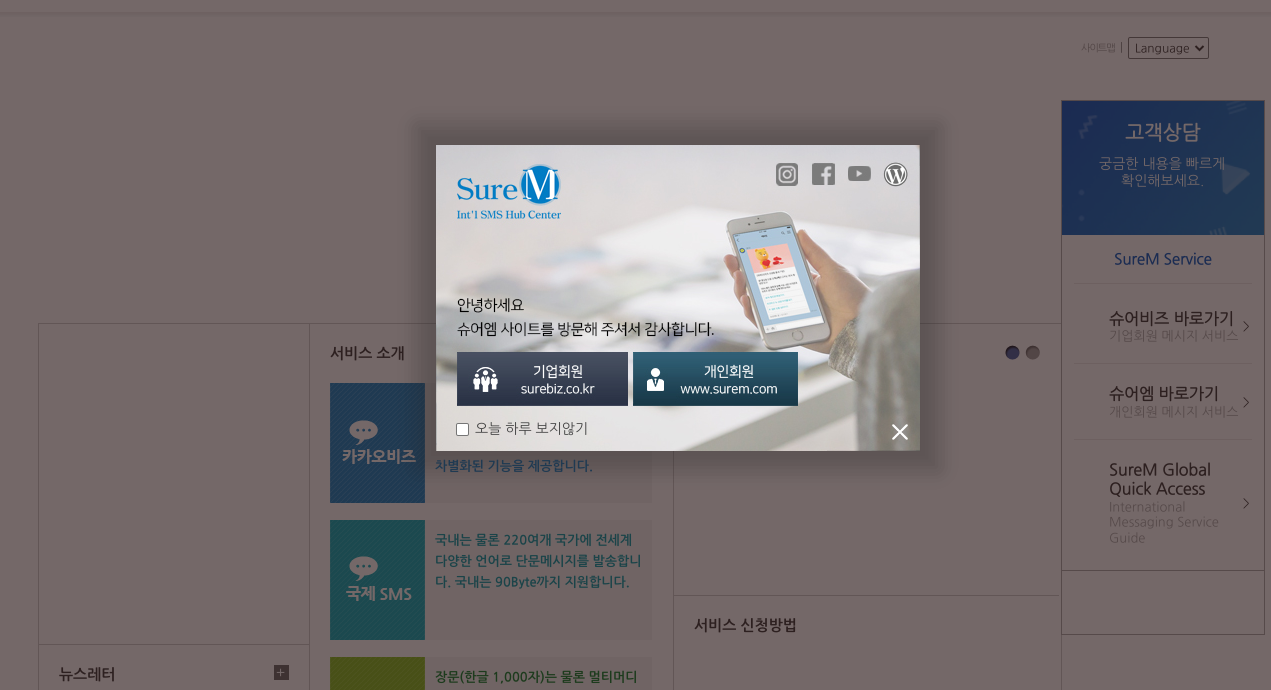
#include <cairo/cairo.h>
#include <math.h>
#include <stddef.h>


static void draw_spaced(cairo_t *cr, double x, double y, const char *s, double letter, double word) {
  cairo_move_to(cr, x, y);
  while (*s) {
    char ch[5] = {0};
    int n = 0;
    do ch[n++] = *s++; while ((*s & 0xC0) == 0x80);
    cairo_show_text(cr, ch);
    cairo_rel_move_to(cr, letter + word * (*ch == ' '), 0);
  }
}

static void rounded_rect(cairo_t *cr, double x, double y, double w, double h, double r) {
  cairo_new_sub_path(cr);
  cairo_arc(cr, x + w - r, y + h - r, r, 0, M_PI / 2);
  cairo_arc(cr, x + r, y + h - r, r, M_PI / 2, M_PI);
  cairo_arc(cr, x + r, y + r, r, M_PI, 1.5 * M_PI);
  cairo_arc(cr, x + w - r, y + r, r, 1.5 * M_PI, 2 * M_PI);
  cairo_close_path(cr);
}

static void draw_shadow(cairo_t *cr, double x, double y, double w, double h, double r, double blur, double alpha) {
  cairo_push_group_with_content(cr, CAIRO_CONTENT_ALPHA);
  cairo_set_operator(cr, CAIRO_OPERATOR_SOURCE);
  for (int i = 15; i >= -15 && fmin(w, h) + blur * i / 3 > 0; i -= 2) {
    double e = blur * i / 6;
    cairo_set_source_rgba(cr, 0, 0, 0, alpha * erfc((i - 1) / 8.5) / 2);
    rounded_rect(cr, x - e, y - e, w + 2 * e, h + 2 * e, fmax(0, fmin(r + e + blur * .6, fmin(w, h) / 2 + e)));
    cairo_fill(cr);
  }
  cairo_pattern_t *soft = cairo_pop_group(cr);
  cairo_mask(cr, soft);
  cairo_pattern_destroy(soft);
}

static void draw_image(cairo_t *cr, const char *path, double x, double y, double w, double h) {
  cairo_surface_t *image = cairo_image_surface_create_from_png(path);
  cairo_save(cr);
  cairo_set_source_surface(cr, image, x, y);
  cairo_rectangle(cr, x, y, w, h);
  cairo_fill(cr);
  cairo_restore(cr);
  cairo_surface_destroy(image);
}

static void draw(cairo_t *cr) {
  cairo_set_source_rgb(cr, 116 / 255.0, 104 / 255.0, 104 / 255.0);
  cairo_paint(cr);
  draw_image(cr, "images/1.png", 0, 12, 1271, 5);
  rounded_rect(cr, 1128.5, 37.5, 80, 21, 1.5);
  cairo_set_source_rgb(cr, 68 / 255.0, 56 / 255.0, 56 / 255.0);
  cairo_set_line_width(cr, 1);
  cairo_stroke(cr);
  cairo_new_path(cr);
  cairo_move_to(cr, 1195.5, 46);
  cairo_line_to(cr, 1199.5, 50);
  cairo_line_to(cr, 1203.5, 46);
  cairo_set_source_rgb(cr, 45 / 255.0, 32 / 255.0, 32 / 255.0);
  cairo_set_line_width(cr, 2);
  cairo_stroke(cr);
  cairo_rectangle(cr, 38.5, 323.5, 1023, 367);
  cairo_set_source_rgb(cr, 98 / 255.0, 86 / 255.0, 86 / 255.0);
  cairo_set_line_width(cr, 1);
  cairo_stroke(cr);
  cairo_rectangle(cr, 673, 451, 1, 239);
  cairo_fill(cr);
  draw_image(cr, "images/2.png", 330, 383, 95, 120);
  cairo_set_source_rgb(cr, 112 / 255.0, 100 / 255.0, 100 / 255.0);
  cairo_rectangle(cr, 425, 383, 227, 120);
  cairo_fill(cr);
  draw_image(cr, "images/3.png", 330, 520, 95, 120);
  cairo_rectangle(cr, 425, 520, 227, 120);
  cairo_fill(cr);
  draw_image(cr, "images/4.png", 330, 657, 95, 33);
  cairo_rectangle(cr, 425, 657, 227, 33);
  cairo_fill(cr);
  draw_image(cr, "images/5.png", 1005, 345, 15, 15);
  draw_image(cr, "images/6.png", 1025, 345, 15, 15);
  cairo_set_source_rgb(cr, 98 / 255.0, 86 / 255.0, 86 / 255.0);
  cairo_rectangle(cr, 674, 595, 385, 1);
  cairo_fill(cr);
  cairo_rectangle(cr, 309, 324, 1, 366);
  cairo_fill(cr);
  cairo_rectangle(cr, 39, 644, 270, 1);
  cairo_fill(cr);
  cairo_set_source_rgb(cr, 62 / 255.0, 50 / 255.0, 50 / 255.0);
  cairo_rectangle(cr, 274, 665, 15, 15);
  cairo_fill(cr);
  cairo_rectangle(cr, 1061.5, 100.5, 203, 534);
  cairo_set_source_rgb(cr, 86 / 255.0, 74 / 255.0, 74 / 255.0);
  cairo_stroke(cr);
  draw_image(cr, "images/7.png", 1062, 101, 202, 134);
  cairo_set_source_rgb(cr, 109 / 255.0, 96 / 255.0, 96 / 255.0);
  cairo_rectangle(cr, 1074, 283, 178, 1);
  cairo_fill(cr);
  cairo_set_source_rgb(cr, 86 / 255.0, 74 / 255.0, 74 / 255.0);
  cairo_rectangle(cr, 1062, 570, 202, 1);
  cairo_fill(cr);
  cairo_set_source_rgb(cr, 109 / 255.0, 96 / 255.0, 96 / 255.0);
  cairo_rectangle(cr, 1074, 363, 178, 1);
  cairo_fill(cr);
  cairo_rectangle(cr, 1074, 439, 178, 1);
  cairo_fill(cr);
  cairo_set_source_rgb(cr, 34 / 255.0, 34 / 255.0, 34 / 255.0);
  draw_shadow(cr, 416, 125, 524, 346, 0, 10, 0.28);
  draw_image(cr, "images/8.png", 436, 145, 484, 306);
  cairo_set_source_rgb(cr, 1, 1, 1);
  rounded_rect(cr, 456.5, 423.5, 12, 12, 1.5);
  cairo_fill_preserve(cr);
  cairo_set_source_rgb(cr, 118 / 255.0, 118 / 255.0, 118 / 255.0);
  cairo_stroke(cr);
  cairo_select_font_face(cr, "NanumGothic", CAIRO_FONT_SLANT_NORMAL, CAIRO_FONT_WEIGHT_NORMAL);
  cairo_set_font_size(cr, 10);
  cairo_set_source_rgb(cr, 80 / 255.0, 68 / 255.0, 68 / 255.0);
  draw_spaced(cr, 1081, 51, "사이트맵", -1, 0);
  cairo_set_font_size(cr, 12);
  cairo_set_source_rgb(cr, 73 / 255.0, 61 / 255.0, 61 / 255.0);
  cairo_move_to(cr, 1120, 51);
  cairo_show_text(cr, "|");
  cairo_set_source_rgb(cr, 45 / 255.0, 32 / 255.0, 32 / 255.0);
  cairo_move_to(cr, 1135, 52);
  cairo_show_text(cr, "Language");
  cairo_select_font_face(cr, "NanumGothic", CAIRO_FONT_SLANT_NORMAL, CAIRO_FONT_WEIGHT_BOLD);
  cairo_set_font_size(cr, 15);
  cairo_move_to(cr, 330, 358);
  cairo_show_text(cr, "서비스 소개");
  cairo_set_font_size(cr, 13);
  cairo_set_source_rgb(cr, 31 / 255.0, 58 / 255.0, 82 / 255.0);
  cairo_move_to(cr, 435, 470);
  cairo_show_text(cr, "차별화된 기능을 제공합니다.");
  cairo_set_source_rgb(cr, 27 / 255.0, 68 / 255.0, 73 / 255.0);
  cairo_move_to(cr, 435, 544);
  cairo_show_text(cr, "국내는 물론 220여개 국가에 전세계");
  cairo_move_to(cr, 435, 565);
  cairo_show_text(cr, "다양한 언어로 단문메시지를 발송합니");
  cairo_move_to(cr, 435, 586);
  cairo_show_text(cr, "다. 국내는 90Byte까지 지원합니다.");
  cairo_set_source_rgb(cr, 29 / 255.0, 59 / 255.0, 29 / 255.0);
  cairo_move_to(cr, 435, 681);
  cairo_show_text(cr, "장문(한글 1,000자)는 물론 멀티머디");
  cairo_set_font_size(cr, 15);
  cairo_set_source_rgb(cr, 45 / 255.0, 32 / 255.0, 32 / 255.0);
  cairo_move_to(cr, 694, 630);
  cairo_show_text(cr, "서비스 신청방법");
  cairo_move_to(cr, 59, 679);
  cairo_show_text(cr, "뉴스레터");
  cairo_select_font_face(cr, "NanumGothic", CAIRO_FONT_SLANT_NORMAL, CAIRO_FONT_WEIGHT_NORMAL);
  cairo_set_font_size(cr, 14);
  cairo_set_source_rgb(cr, 116 / 255.0, 104 / 255.0, 104 / 255.0);
  cairo_move_to(cr, 274, 677);
  cairo_show_text(cr, "＋");
  cairo_select_font_face(cr, "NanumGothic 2", CAIRO_FONT_SLANT_NORMAL, CAIRO_FONT_WEIGHT_BOLD);
  cairo_set_font_size(cr, 20);
  cairo_move_to(cr, 1125, 139);
  cairo_show_text(cr, "고객상담");
  cairo_select_font_face(cr, "NanumGothic", CAIRO_FONT_SLANT_NORMAL, CAIRO_FONT_WEIGHT_NORMAL);
  cairo_set_font_size(cr, 14);
  cairo_move_to(cr, 1099, 168);
  cairo_show_text(cr, "궁금한 내용을 빠르게");
  cairo_move_to(cr, 1121, 185);
  cairo_show_text(cr, "확인해보세요.");
  cairo_select_font_face(cr, "NanumGothic 2", CAIRO_FONT_SLANT_NORMAL, CAIRO_FONT_WEIGHT_BOLD);
  cairo_set_font_size(cr, 15);
  cairo_set_source_rgb(cr, 27 / 255.0, 44 / 255.0, 82 / 255.0);
  cairo_move_to(cr, 1114, 264);
  cairo_show_text(cr, "SureM Service");
  cairo_set_font_size(cr, 16);
  cairo_set_source_rgb(cr, 45 / 255.0, 32 / 255.0, 32 / 255.0);
  cairo_move_to(cr, 1109, 324);
  cairo_show_text(cr, "슈어비즈 바로가기");
  cairo_select_font_face(cr, "NanumGothic", CAIRO_FONT_SLANT_NORMAL, CAIRO_FONT_WEIGHT_NORMAL);
  cairo_set_font_size(cr, 13);
  cairo_set_source_rgb(cr, 86 / 255.0, 74 / 255.0, 74 / 255.0);
  cairo_move_to(cr, 1109, 340);
  cairo_show_text(cr, "기업회원 메시지 서비스");
  cairo_set_font_size(cr, 12);
  cairo_set_source_rgb(cr, 45 / 255.0, 32 / 255.0, 32 / 255.0);
  cairo_move_to(cr, 1243, 330);
  cairo_show_text(cr, ">");
  cairo_select_font_face(cr, "NanumGothic 2", CAIRO_FONT_SLANT_NORMAL, CAIRO_FONT_WEIGHT_BOLD);
  cairo_set_font_size(cr, 16);
  cairo_move_to(cr, 1109, 399);
  cairo_show_text(cr, "슈어엠 바로가기");
  cairo_select_font_face(cr, "NanumGothic", CAIRO_FONT_SLANT_NORMAL, CAIRO_FONT_WEIGHT_NORMAL);
  cairo_set_font_size(cr, 13);
  cairo_set_source_rgb(cr, 86 / 255.0, 74 / 255.0, 74 / 255.0);
  cairo_move_to(cr, 1109, 416);
  cairo_show_text(cr, "개인회원 메시지 서비스");
  cairo_set_font_size(cr, 12);
  cairo_set_source_rgb(cr, 45 / 255.0, 32 / 255.0, 32 / 255.0);
  cairo_move_to(cr, 1243, 406);
  cairo_show_text(cr, ">");
  cairo_select_font_face(cr, "NanumGothic 2", CAIRO_FONT_SLANT_NORMAL, CAIRO_FONT_WEIGHT_BOLD);
  cairo_set_font_size(cr, 16);
  cairo_move_to(cr, 1109, 475);
  cairo_show_text(cr, "SureM Global");
  cairo_move_to(cr, 1109, 494);
  cairo_show_text(cr, "Quick Access");
  cairo_select_font_face(cr, "NanumGothic", CAIRO_FONT_SLANT_NORMAL, CAIRO_FONT_WEIGHT_NORMAL);
  cairo_set_font_size(cr, 13);
  cairo_set_source_rgb(cr, 86 / 255.0, 74 / 255.0, 74 / 255.0);
  cairo_move_to(cr, 1109, 511);
  cairo_show_text(cr, "International");
  cairo_move_to(cr, 1109, 526);
  cairo_show_text(cr, "Messaging Service");
  cairo_move_to(cr, 1109, 542);
  cairo_show_text(cr, "Guide");
  cairo_set_font_size(cr, 12);
  cairo_set_source_rgb(cr, 45 / 255.0, 32 / 255.0, 32 / 255.0);
  cairo_move_to(cr, 1243, 507);
  cairo_show_text(cr, ">");
  cairo_set_font_size(cr, 14);
  cairo_set_source_rgb(cr, 68 / 255.0, 68 / 255.0, 68 / 255.0);
  cairo_move_to(cr, 475, 433);
  cairo_show_text(cr, "오늘 하루 보지않기");
}

int main(void) {
  cairo_surface_t *surface = cairo_image_surface_create(CAIRO_FORMAT_RGB24, 1271, 690);
  cairo_t *cr = cairo_create(surface);
  cairo_font_options_t *options = cairo_font_options_create();
  cairo_font_options_set_hint_metrics(options, CAIRO_HINT_METRICS_OFF);
  cairo_font_options_set_hint_style(options, CAIRO_HINT_STYLE_NONE);
  cairo_set_font_options(cr, options);
  cairo_set_miter_limit(cr, 4);
  draw(cr);
  cairo_surface_write_to_png(surface, "out.png");
  cairo_font_options_destroy(options);
  cairo_destroy(cr);
  cairo_surface_destroy(surface);
  return 0;
}
